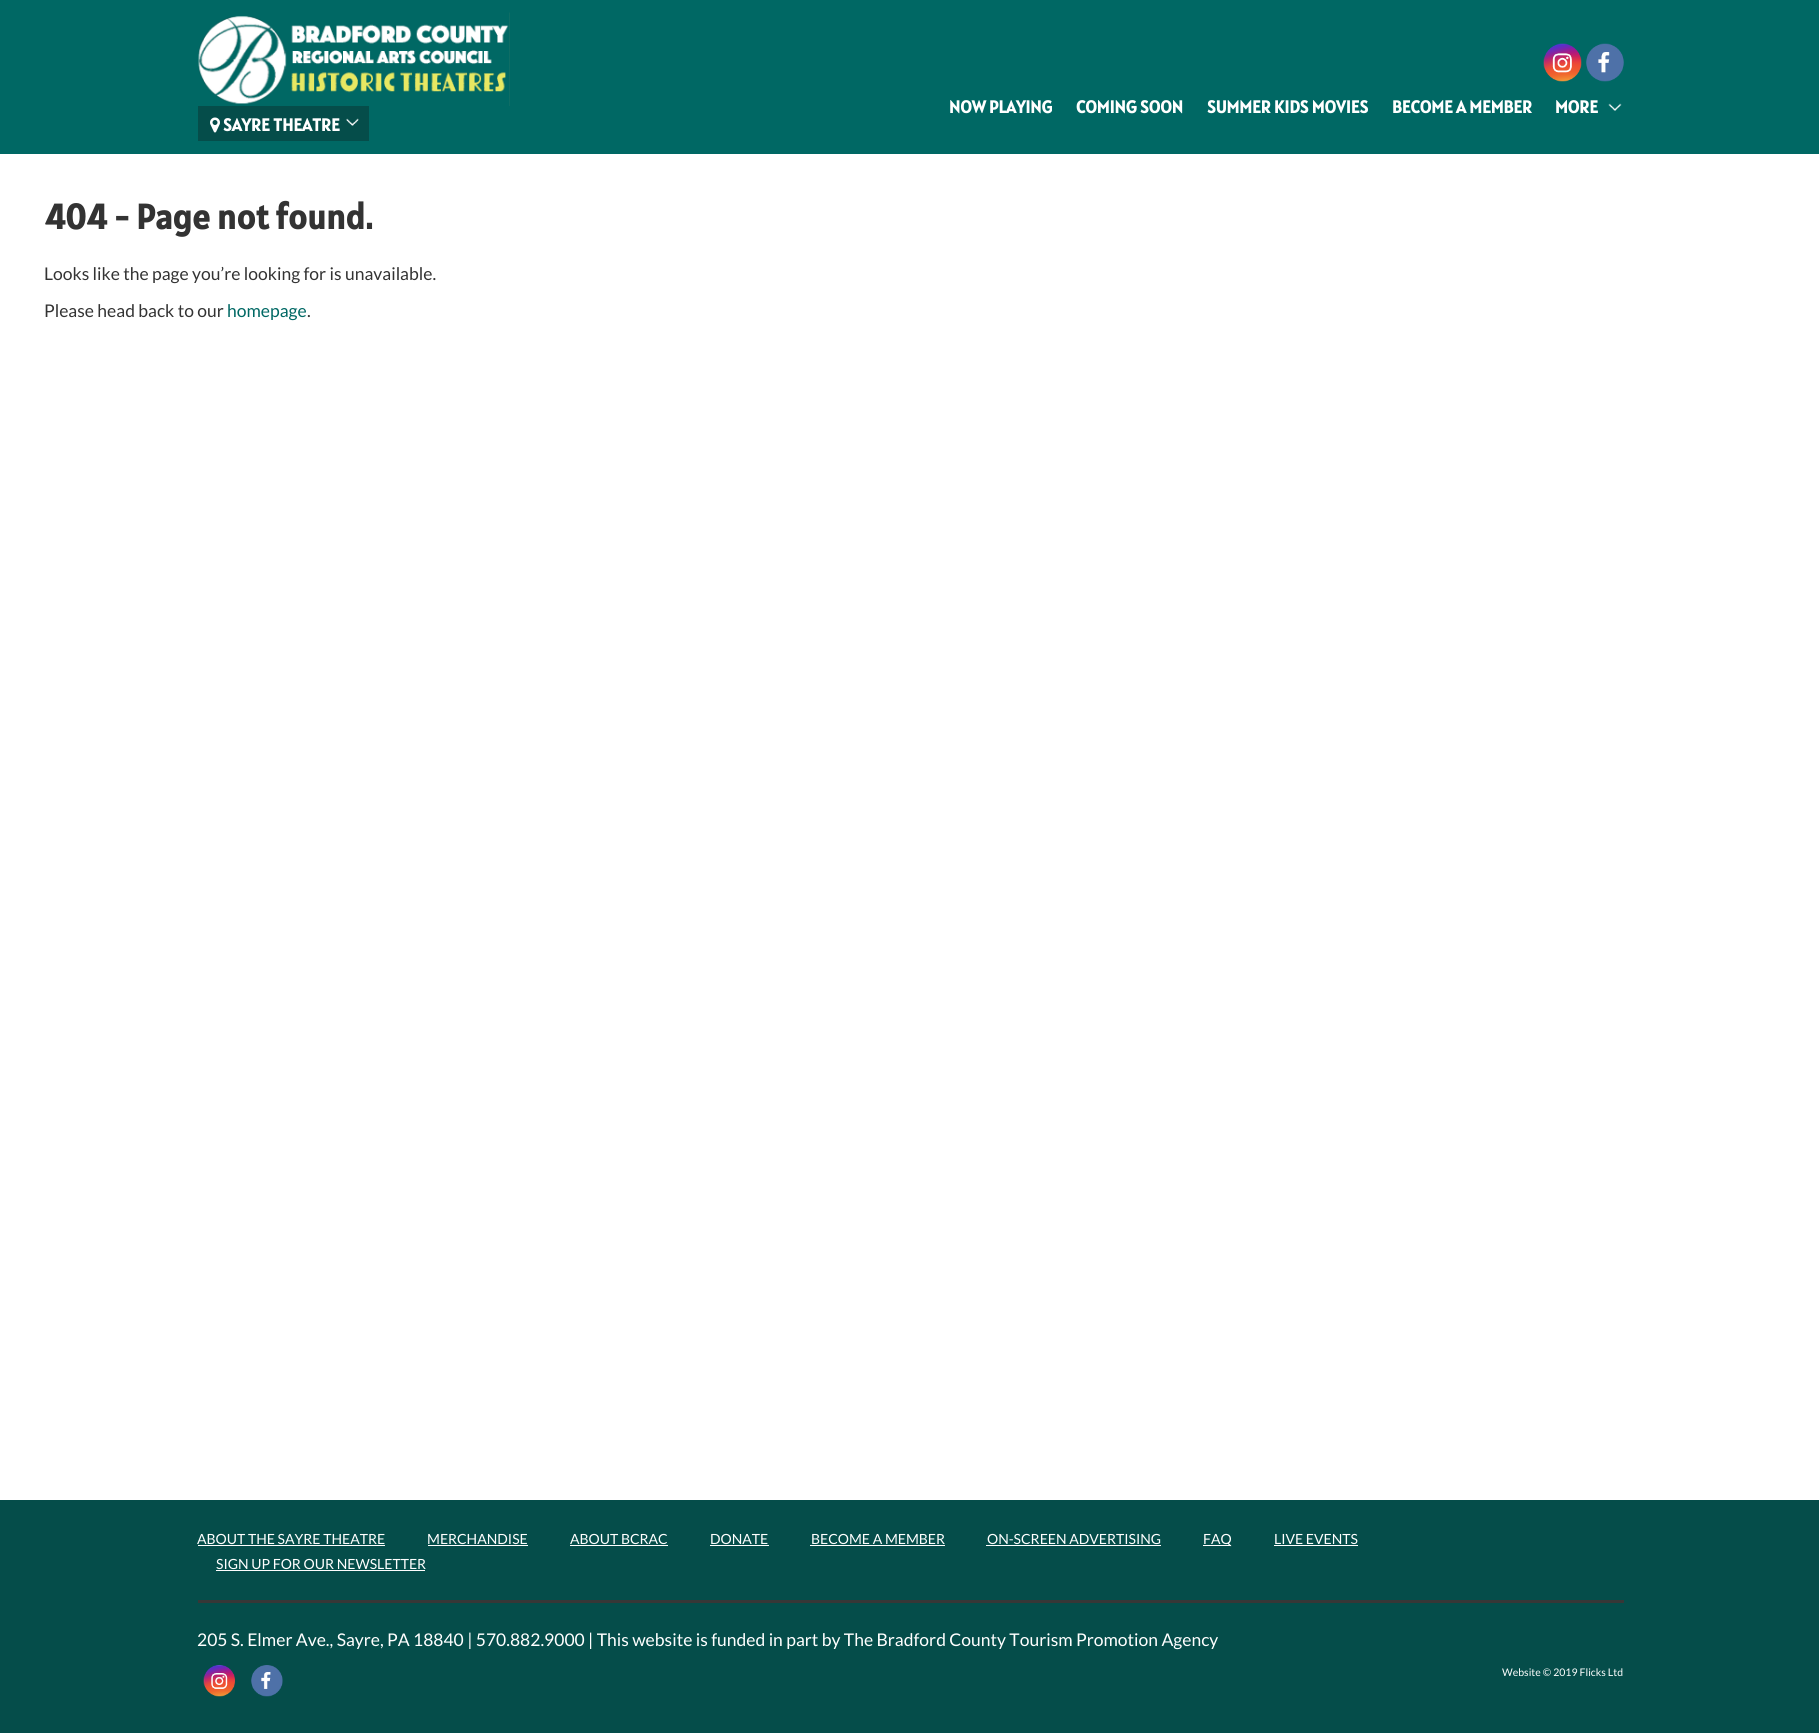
#include <cairo/cairo.h>
#include <math.h>
#include <stddef.h>


static void draw_image(cairo_t *cr, const char *path, double x, double y, double w, double h) {
  cairo_surface_t *image = cairo_image_surface_create_from_png(path);
  cairo_save(cr);
  cairo_set_source_surface(cr, image, x, y);
  cairo_rectangle(cr, x, y, w, h);
  cairo_fill(cr);
  cairo_restore(cr);
  cairo_surface_destroy(image);
}

static void draw(cairo_t *cr) {
  cairo_set_source_rgb(cr, 1, 1, 1);
  cairo_paint(cr);
  cairo_set_source_rgb(cr, 0, 104 / 255.0, 100 / 255.0);
  cairo_rectangle(cr, 0, 0, 1819, 154);
  cairo_fill(cr);
  draw_image(cr, "images/1.png", 1543, 43, 39, 39);
  draw_image(cr, "images/2.png", 1586, 43, 38, 39);
  draw_image(cr, "images/3.png", 1608, 103, 14, 8);
  draw_image(cr, "images/4.png", 198, 12, 312, 94);
  cairo_set_source_rgb(cr, 5 / 255.0, 77 / 255.0, 74 / 255.0);
  cairo_rectangle(cr, 198, 106, 171, 35);
  cairo_fill(cr);
  draw_image(cr, "images/5.png", 210, 117, 10, 16);
  draw_image(cr, "images/6.png", 346, 118, 13, 8);
  cairo_rectangle(cr, 0, 1500, 1819, 233);
  cairo_fill(cr);
  cairo_set_source_rgb(cr, 1, 1, 1);
  cairo_rectangle(cr, 198, 1545, 187, 1);
  cairo_fill(cr);
  cairo_rectangle(cr, 428, 1545, 100, 1);
  cairo_fill(cr);
  cairo_rectangle(cr, 570, 1545, 98, 1);
  cairo_fill(cr);
  cairo_rectangle(cr, 710, 1545, 59, 1);
  cairo_fill(cr);
  cairo_rectangle(cr, 810, 1545, 135, 1);
  cairo_fill(cr);
  cairo_rectangle(cr, 986, 1545, 175, 1);
  cairo_fill(cr);
  cairo_rectangle(cr, 1203, 1545, 28, 1);
  cairo_fill(cr);
  cairo_rectangle(cr, 1274, 1545, 84, 1);
  cairo_fill(cr);
  cairo_rectangle(cr, 216, 1570, 209, 1);
  cairo_fill(cr);
  cairo_set_source_rgb(cr, 55 / 255.0, 55 / 255.0, 55 / 255.0);
  cairo_rectangle(cr, 198, 1600, 1426, 3);
  cairo_fill(cr);
  draw_image(cr, "images/7.png", 203, 1665, 32, 32);
  draw_image(cr, "images/8.png", 251, 1665, 32, 32);
  cairo_select_font_face(cr, "Alatsi", CAIRO_FONT_SLANT_NORMAL, CAIRO_FONT_WEIGHT_BOLD);
  cairo_set_font_size(cr, 17.5);
  cairo_set_source_rgb(cr, 1, 1, 1);
  cairo_move_to(cr, 949, 113);
  cairo_show_text(cr, "NOW PLAYING");
  cairo_move_to(cr, 1076, 113);
  cairo_show_text(cr, "COMING SOON");
  cairo_move_to(cr, 1207, 113);
  cairo_show_text(cr, "SUMMER KIDS MOVIES");
  cairo_move_to(cr, 1392, 113);
  cairo_show_text(cr, "BECOME A MEMBER");
  cairo_move_to(cr, 1555, 113);
  cairo_show_text(cr, "MORE");
  cairo_move_to(cr, 223, 131);
  cairo_show_text(cr, "SAYRE THEATRE");
  cairo_set_font_size(cr, 35);
  cairo_set_source_rgb(cr, 51 / 255.0, 51 / 255.0, 51 / 255.0);
  cairo_move_to(cr, 44, 229);
  cairo_show_text(cr, "404 - Page not found.");
  cairo_select_font_face(cr, "Lato", CAIRO_FONT_SLANT_NORMAL, CAIRO_FONT_WEIGHT_NORMAL);
  cairo_set_font_size(cr, 17.5);
  cairo_move_to(cr, 44, 280);
  cairo_show_text(cr, "Looks like the page you’re looking for is unavailable.");
  cairo_move_to(cr, 44, 317);
  cairo_show_text(cr, "Please head back to our");
  cairo_set_source_rgb(cr, 0, 104 / 255.0, 100 / 255.0);
  cairo_move_to(cr, 227, 317);
  cairo_show_text(cr, "homepage");
  cairo_set_source_rgb(cr, 51 / 255.0, 51 / 255.0, 51 / 255.0);
  cairo_move_to(cr, 307, 317);
  cairo_show_text(cr, ".");
  cairo_set_font_size(cr, 14);
  cairo_set_source_rgb(cr, 1, 1, 1);
  cairo_move_to(cr, 197, 1544);
  cairo_show_text(cr, "ABOUT THE SAYRE THEATRE");
  cairo_move_to(cr, 427, 1544);
  cairo_show_text(cr, "MERCHANDISE");
  cairo_move_to(cr, 570, 1544);
  cairo_show_text(cr, "ABOUT BCRAC");
  cairo_move_to(cr, 710, 1544);
  cairo_show_text(cr, "DONATE");
  cairo_move_to(cr, 811, 1544);
  cairo_show_text(cr, "BECOME A MEMBER");
  cairo_move_to(cr, 987, 1544);
  cairo_show_text(cr, "ON-SCREEN ADVERTISING");
  cairo_move_to(cr, 1203, 1544);
  cairo_show_text(cr, "FAQ");
  cairo_move_to(cr, 1274, 1544);
  cairo_show_text(cr, "LIVE EVENTS");
  cairo_move_to(cr, 216, 1569);
  cairo_show_text(cr, "SIGN UP FOR OUR NEWSLETTER");
  cairo_set_font_size(cr, 17.5);
  cairo_move_to(cr, 197, 1646);
  cairo_show_text(cr, "205 S. Elmer Ave., Sayre, PA 18840 | 570.882.9000 | This website is funded in part by The Bradford County Tourism Promotion Agency");
  cairo_set_font_size(cr, 10.5);
  cairo_move_to(cr, 1502, 1676);
  cairo_show_text(cr, "Website © 2019 Flicks Ltd");
}

int main(void) {
  cairo_surface_t *surface = cairo_image_surface_create(CAIRO_FORMAT_RGB24, 1819, 1733);
  cairo_t *cr = cairo_create(surface);
  cairo_font_options_t *options = cairo_font_options_create();
  cairo_font_options_set_hint_metrics(options, CAIRO_HINT_METRICS_OFF);
  cairo_font_options_set_hint_style(options, CAIRO_HINT_STYLE_NONE);
  cairo_set_font_options(cr, options);
  cairo_set_miter_limit(cr, 4);
  draw(cr);
  cairo_surface_write_to_png(surface, "out.png");
  cairo_font_options_destroy(options);
  cairo_destroy(cr);
  cairo_surface_destroy(surface);
  return 0;
}
